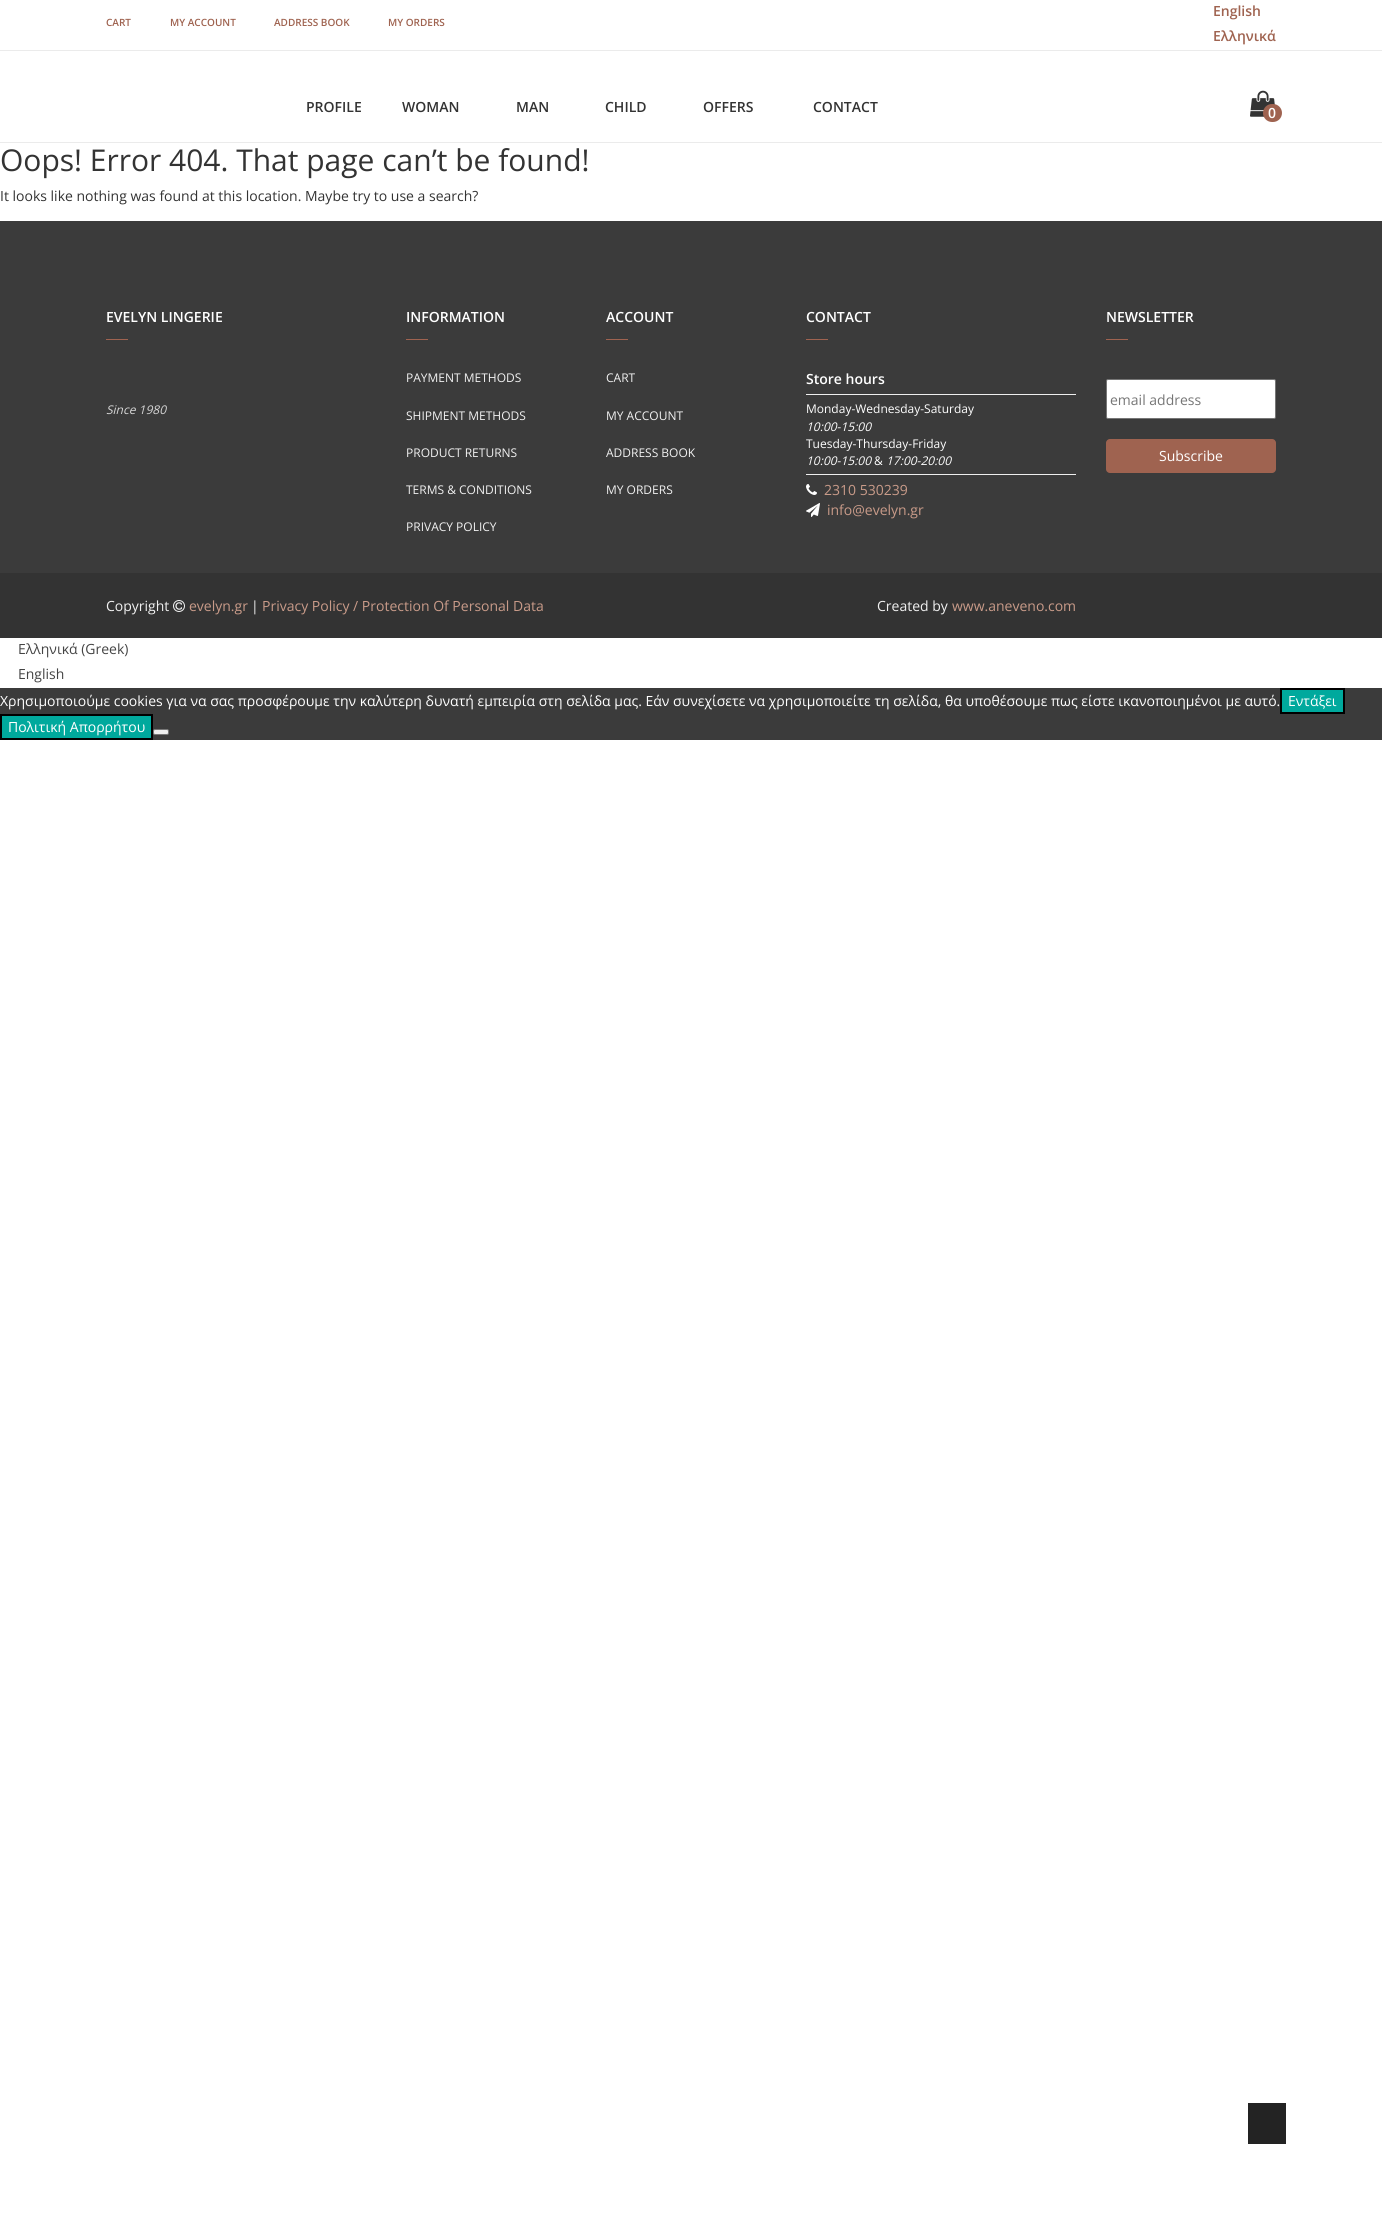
#include <cairo/cairo.h>
#include <math.h>
#include <stddef.h>


static void rounded_rect(cairo_t *cr, double x, double y, double w, double h, double r) {
  cairo_new_sub_path(cr);
  cairo_arc(cr, x + w - r, y + h - r, r, 0, M_PI / 2);
  cairo_arc(cr, x + r, y + h - r, r, M_PI / 2, M_PI);
  cairo_arc(cr, x + r, y + r, r, M_PI, 1.5 * M_PI);
  cairo_arc(cr, x + w - r, y + r, r, 1.5 * M_PI, 2 * M_PI);
  cairo_close_path(cr);
}

static void draw_image(cairo_t *cr, const char *path, double x, double y, double w, double h) {
  cairo_surface_t *image = cairo_image_surface_create_from_png(path);
  cairo_save(cr);
  cairo_set_source_surface(cr, image, x, y);
  cairo_rectangle(cr, x, y, w, h);
  cairo_fill(cr);
  cairo_restore(cr);
  cairo_surface_destroy(image);
}

static void draw(cairo_t *cr) {
  cairo_set_source_rgb(cr, 1, 1, 1);
  cairo_paint(cr);
  cairo_set_source_rgb(cr, 235 / 255.0, 235 / 255.0, 235 / 255.0);
  cairo_rectangle(cr, 0, 50, 1382, 1);
  cairo_fill(cr);
  cairo_rectangle(cr, 0, 142, 1382, 1);
  cairo_fill(cr);
  draw_image(cr, "images/1.png", 1250, 90, 25, 27);
  cairo_set_source_rgb(cr, 159 / 255.0, 99 / 255.0, 80 / 255.0);
  rounded_rect(cr, 1263, 104, 19, 18, 9);
  cairo_fill(cr);
  cairo_set_source_rgb(cr, 59 / 255.0, 59 / 255.0, 59 / 255.0);
  cairo_rectangle(cr, 0, 221, 1382, 352);
  cairo_fill(cr);
  cairo_set_source_rgb(cr, 159 / 255.0, 99 / 255.0, 80 / 255.0);
  cairo_rectangle(cr, 106, 339, 22, 1);
  cairo_fill(cr);
  cairo_rectangle(cr, 406, 339, 22, 1);
  cairo_fill(cr);
  cairo_rectangle(cr, 606, 339, 22, 1);
  cairo_fill(cr);
  cairo_rectangle(cr, 806, 339, 22, 1);
  cairo_fill(cr);
  cairo_set_source_rgb(cr, 238 / 255.0, 238 / 255.0, 238 / 255.0);
  cairo_rectangle(cr, 806, 394, 270, 1);
  cairo_fill(cr);
  cairo_rectangle(cr, 806, 474, 270, 1);
  cairo_fill(cr);
  draw_image(cr, "images/2.png", 806, 484, 11, 11);
  draw_image(cr, "images/3.png", 806, 503, 14, 14);
  cairo_set_source_rgb(cr, 159 / 255.0, 99 / 255.0, 80 / 255.0);
  cairo_rectangle(cr, 1106, 339, 22, 1);
  cairo_fill(cr);
  cairo_set_source_rgb(cr, 1, 1, 1);
  rounded_rect(cr, 1106.5, 379.5, 169, 39, 1.5);
  cairo_fill_preserve(cr);
  cairo_set_source_rgb(cr, 118 / 255.0, 118 / 255.0, 118 / 255.0);
  cairo_set_line_width(cr, 1);
  cairo_stroke(cr);
  cairo_set_source_rgb(cr, 159 / 255.0, 99 / 255.0, 80 / 255.0);
  rounded_rect(cr, 1106, 439, 170, 34, 4);
  cairo_fill(cr);
  cairo_set_source_rgb(cr, 51 / 255.0, 51 / 255.0, 51 / 255.0);
  cairo_rectangle(cr, 0, 573, 1382, 65);
  cairo_fill(cr);
  draw_image(cr, "images/4.png", 173, 600, 12, 12);
  cairo_set_source_rgb(cr, 35 / 255.0, 35 / 255.0, 35 / 255.0);
  cairo_rectangle(cr, 1248, 2103, 38, 41);
  cairo_fill(cr);
  cairo_set_source_rgb(cr, 59 / 255.0, 59 / 255.0, 59 / 255.0);
  cairo_rectangle(cr, 0, 688, 1382, 52);
  cairo_fill(cr);
  cairo_set_source_rgb(cr, 0, 169 / 255.0, 157 / 255.0);
  cairo_rectangle(cr, 1281, 689, 63, 24);
  cairo_fill_preserve(cr);
  cairo_set_source_rgb(cr, 0, 0, 0);
  cairo_set_line_width(cr, 2);
  cairo_stroke(cr);
  cairo_set_source_rgb(cr, 0, 169 / 255.0, 157 / 255.0);
  cairo_rectangle(cr, 1, 715, 151, 24);
  cairo_fill_preserve(cr);
  cairo_set_source_rgb(cr, 0, 0, 0);
  cairo_stroke(cr);
  cairo_set_source_rgb(cr, 239 / 255.0, 239 / 255.0, 239 / 255.0);
  rounded_rect(cr, 153.5, 729.5, 15, 5, 1.5);
  cairo_fill_preserve(cr);
  cairo_set_source_rgb(cr, 118 / 255.0, 118 / 255.0, 118 / 255.0);
  cairo_set_line_width(cr, 1);
  cairo_stroke(cr);
  cairo_select_font_face(cr, "Open Sans SemiBold", CAIRO_FONT_SLANT_NORMAL, CAIRO_FONT_WEIGHT_NORMAL);
  cairo_set_font_size(cr, 10);
  cairo_set_source_rgb(cr, 159 / 255.0, 99 / 255.0, 80 / 255.0);
  cairo_move_to(cr, 106, 26);
  cairo_show_text(cr, "CART");
  cairo_move_to(cr, 170, 26);
  cairo_show_text(cr, "MY ACCOUNT");
  cairo_move_to(cr, 274, 26);
  cairo_show_text(cr, "ADDRESS BOOK");
  cairo_move_to(cr, 388, 26);
  cairo_show_text(cr, "MY ORDERS");
  cairo_set_font_size(cr, 14);
  cairo_move_to(cr, 1213, 16);
  cairo_show_text(cr, "English");
  cairo_move_to(cr, 1213, 41);
  cairo_show_text(cr, "Ελληνικά");
  cairo_set_source_rgb(cr, 51 / 255.0, 51 / 255.0, 51 / 255.0);
  cairo_move_to(cr, 306, 112);
  cairo_show_text(cr, "PROFILE");
  cairo_move_to(cr, 402, 112);
  cairo_show_text(cr, "WOMAN");
  cairo_move_to(cr, 516, 112);
  cairo_show_text(cr, "ΜΑΝ");
  cairo_move_to(cr, 605, 112);
  cairo_show_text(cr, "CHILD");
  cairo_move_to(cr, 703, 112);
  cairo_show_text(cr, "OFFERS");
  cairo_move_to(cr, 813, 112);
  cairo_show_text(cr, "CONTACT");
  cairo_set_source_rgb(cr, 1, 1, 1);
  cairo_move_to(cr, 1268, 118);
  cairo_show_text(cr, "0");
  cairo_select_font_face(cr, "Open Sans", CAIRO_FONT_SLANT_NORMAL, CAIRO_FONT_WEIGHT_NORMAL);
  cairo_set_font_size(cr, 30);
  cairo_set_source_rgb(cr, 51 / 255.0, 51 / 255.0, 51 / 255.0);
  cairo_move_to(cr, 0, 171);
  cairo_show_text(cr, "Oops! Error 404. That page can’t be found!");
  cairo_set_font_size(cr, 14);
  cairo_move_to(cr, 0, 201);
  cairo_show_text(cr, "It looks like nothing was found at this location. Maybe try to use a search?");
  cairo_select_font_face(cr, "Open Sans SemiBold", CAIRO_FONT_SLANT_NORMAL, CAIRO_FONT_WEIGHT_NORMAL);
  cairo_set_source_rgb(cr, 1, 1, 1);
  cairo_move_to(cr, 106, 322);
  cairo_show_text(cr, "EVELYN LINGERIE");
  cairo_select_font_face(cr, "Open Sans", CAIRO_FONT_SLANT_ITALIC, CAIRO_FONT_WEIGHT_NORMAL);
  cairo_set_font_size(cr, 12);
  cairo_set_source_rgb(cr, 215 / 255.0, 215 / 255.0, 215 / 255.0);
  cairo_move_to(cr, 106, 414);
  cairo_show_text(cr, "Since 1980");
  cairo_select_font_face(cr, "Open Sans SemiBold", CAIRO_FONT_SLANT_NORMAL, CAIRO_FONT_WEIGHT_NORMAL);
  cairo_set_font_size(cr, 14);
  cairo_set_source_rgb(cr, 1, 1, 1);
  cairo_move_to(cr, 406, 322);
  cairo_show_text(cr, "INFORMATION");
  cairo_select_font_face(cr, "Open Sans", CAIRO_FONT_SLANT_NORMAL, CAIRO_FONT_WEIGHT_NORMAL);
  cairo_set_font_size(cr, 12);
  cairo_set_source_rgb(cr, 241 / 255.0, 241 / 255.0, 241 / 255.0);
  cairo_move_to(cr, 406, 382);
  cairo_show_text(cr, "PAYMENT METHODS");
  cairo_move_to(cr, 406, 420);
  cairo_show_text(cr, "SHIPMENT METHODS");
  cairo_move_to(cr, 406, 457);
  cairo_show_text(cr, "PRODUCT RETURNS");
  cairo_move_to(cr, 406, 494);
  cairo_show_text(cr, "TERMS & CONDITIONS");
  cairo_move_to(cr, 406, 531);
  cairo_show_text(cr, "PRIVACY POLICY");
  cairo_select_font_face(cr, "Open Sans SemiBold", CAIRO_FONT_SLANT_NORMAL, CAIRO_FONT_WEIGHT_NORMAL);
  cairo_set_font_size(cr, 14);
  cairo_set_source_rgb(cr, 1, 1, 1);
  cairo_move_to(cr, 606, 322);
  cairo_show_text(cr, "ACCOUNT");
  cairo_select_font_face(cr, "Open Sans", CAIRO_FONT_SLANT_NORMAL, CAIRO_FONT_WEIGHT_NORMAL);
  cairo_set_font_size(cr, 12);
  cairo_set_source_rgb(cr, 241 / 255.0, 241 / 255.0, 241 / 255.0);
  cairo_move_to(cr, 606, 382);
  cairo_show_text(cr, "CART");
  cairo_move_to(cr, 606, 420);
  cairo_show_text(cr, "MY ACCOUNT");
  cairo_move_to(cr, 606, 457);
  cairo_show_text(cr, "ADDRESS BOOK");
  cairo_move_to(cr, 606, 494);
  cairo_show_text(cr, "MY ORDERS");
  cairo_select_font_face(cr, "Open Sans SemiBold", CAIRO_FONT_SLANT_NORMAL, CAIRO_FONT_WEIGHT_NORMAL);
  cairo_set_font_size(cr, 14);
  cairo_set_source_rgb(cr, 1, 1, 1);
  cairo_move_to(cr, 806, 322);
  cairo_show_text(cr, "CONTACT");
  cairo_move_to(cr, 806, 384);
  cairo_show_text(cr, "Store hours");
  cairo_select_font_face(cr, "Open Sans", CAIRO_FONT_SLANT_NORMAL, CAIRO_FONT_WEIGHT_NORMAL);
  cairo_set_font_size(cr, 12);
  cairo_move_to(cr, 806, 413);
  cairo_show_text(cr, "Monday-Wednesday-Saturday");
  cairo_select_font_face(cr, "Open Sans", CAIRO_FONT_SLANT_ITALIC, CAIRO_FONT_WEIGHT_NORMAL);
  cairo_move_to(cr, 806, 431);
  cairo_show_text(cr, "10:00-15:00");
  cairo_select_font_face(cr, "Open Sans", CAIRO_FONT_SLANT_NORMAL, CAIRO_FONT_WEIGHT_NORMAL);
  cairo_move_to(cr, 806, 448);
  cairo_show_text(cr, "Tuesday-Thursday-Friday");
  cairo_select_font_face(cr, "Open Sans", CAIRO_FONT_SLANT_ITALIC, CAIRO_FONT_WEIGHT_NORMAL);
  cairo_move_to(cr, 806, 465);
  cairo_show_text(cr, "10:00-15:00");
  cairo_select_font_face(cr, "Open Sans", CAIRO_FONT_SLANT_NORMAL, CAIRO_FONT_WEIGHT_NORMAL);
  cairo_move_to(cr, 874, 465);
  cairo_show_text(cr, "&");
  cairo_select_font_face(cr, "Open Sans", CAIRO_FONT_SLANT_ITALIC, CAIRO_FONT_WEIGHT_NORMAL);
  cairo_move_to(cr, 886, 465);
  cairo_show_text(cr, "17:00-20:00");
  cairo_select_font_face(cr, "Open Sans", CAIRO_FONT_SLANT_NORMAL, CAIRO_FONT_WEIGHT_NORMAL);
  cairo_set_font_size(cr, 14);
  cairo_set_source_rgb(cr, 201 / 255.0, 155 / 255.0, 137 / 255.0);
  cairo_move_to(cr, 824, 495);
  cairo_show_text(cr, "2310 530239");
  cairo_move_to(cr, 827, 515);
  cairo_show_text(cr, "info@evelyn.gr");
  cairo_select_font_face(cr, "Open Sans SemiBold", CAIRO_FONT_SLANT_NORMAL, CAIRO_FONT_WEIGHT_NORMAL);
  cairo_set_source_rgb(cr, 1, 1, 1);
  cairo_move_to(cr, 1106, 322);
  cairo_show_text(cr, "NEWSLETTER");
  cairo_select_font_face(cr, "Open Sans", CAIRO_FONT_SLANT_NORMAL, CAIRO_FONT_WEIGHT_NORMAL);
  cairo_set_source_rgb(cr, 117 / 255.0, 117 / 255.0, 117 / 255.0);
  cairo_move_to(cr, 1110, 405);
  cairo_show_text(cr, "email address");
  cairo_set_source_rgb(cr, 1, 1, 1);
  cairo_move_to(cr, 1159, 461);
  cairo_show_text(cr, "Subscribe");
  cairo_set_source_rgb(cr, 241 / 255.0, 241 / 255.0, 241 / 255.0);
  cairo_move_to(cr, 106, 611);
  cairo_show_text(cr, "Copyright");
  cairo_set_source_rgb(cr, 201 / 255.0, 155 / 255.0, 137 / 255.0);
  cairo_move_to(cr, 189, 611);
  cairo_show_text(cr, "evelyn.gr");
  cairo_set_source_rgb(cr, 241 / 255.0, 241 / 255.0, 241 / 255.0);
  cairo_move_to(cr, 251, 611);
  cairo_show_text(cr, "|");
  cairo_set_source_rgb(cr, 201 / 255.0, 155 / 255.0, 137 / 255.0);
  cairo_move_to(cr, 262, 611);
  cairo_show_text(cr, "Privacy Policy / Protection Of Personal Data");
  cairo_set_source_rgb(cr, 241 / 255.0, 241 / 255.0, 241 / 255.0);
  cairo_move_to(cr, 877, 611);
  cairo_show_text(cr, "Created by");
  cairo_set_source_rgb(cr, 201 / 255.0, 155 / 255.0, 137 / 255.0);
  cairo_move_to(cr, 952, 611);
  cairo_show_text(cr, "www.aneveno.com");
  cairo_set_source_rgb(cr, 68 / 255.0, 68 / 255.0, 68 / 255.0);
  cairo_move_to(cr, 18, 654);
  cairo_show_text(cr, "Ελληνικά (Greek)");
  cairo_move_to(cr, 18, 679);
  cairo_show_text(cr, "English");
  cairo_set_source_rgb(cr, 1, 1, 1);
  cairo_move_to(cr, 0, 706);
  cairo_show_text(cr, "Χρησιμοποιούμε cookies για να σας προσφέρουμε την καλύτερη δυνατή εμπειρία στη σελίδα μας. Εάν συνεχίσετε να χρησιμοποιείτε τη σελίδα, θα υποθέσουμε πως είστε ικανοποιημένοι με αυτό.");
  cairo_move_to(cr, 1288, 706);
  cairo_show_text(cr, "Εντάξει");
  cairo_move_to(cr, 8, 732);
  cairo_show_text(cr, "Πολιτική Απορρήτου");
}

int main(void) {
  cairo_surface_t *surface = cairo_image_surface_create(CAIRO_FORMAT_RGB24, 1382, 2222);
  cairo_t *cr = cairo_create(surface);
  cairo_font_options_t *options = cairo_font_options_create();
  cairo_font_options_set_hint_metrics(options, CAIRO_HINT_METRICS_OFF);
  cairo_font_options_set_hint_style(options, CAIRO_HINT_STYLE_NONE);
  cairo_set_font_options(cr, options);
  cairo_set_miter_limit(cr, 4);
  draw(cr);
  cairo_surface_write_to_png(surface, "out.png");
  cairo_font_options_destroy(options);
  cairo_destroy(cr);
  cairo_surface_destroy(surface);
  return 0;
}
